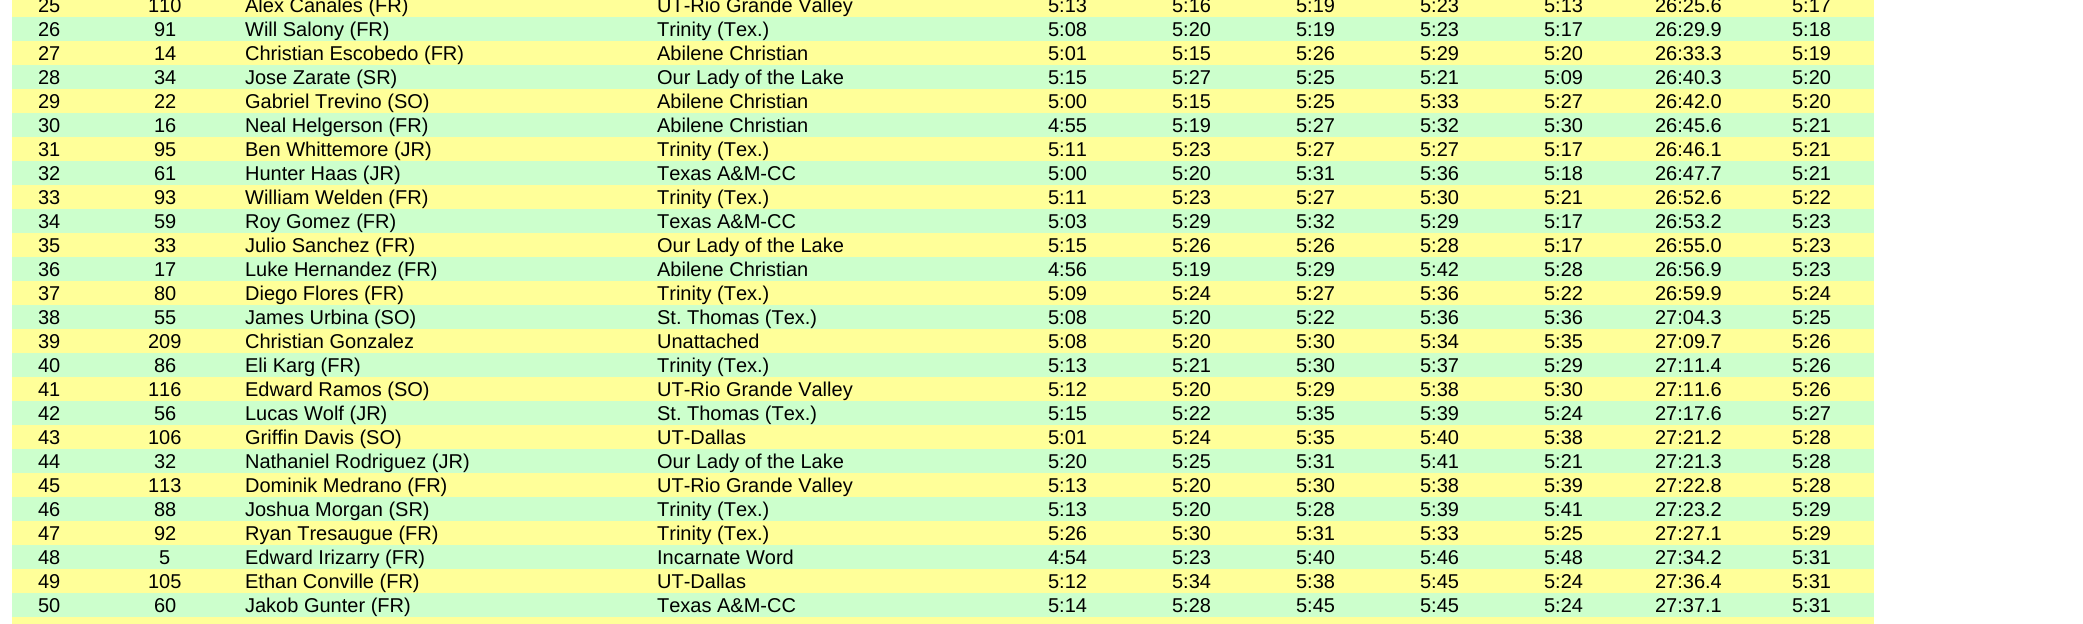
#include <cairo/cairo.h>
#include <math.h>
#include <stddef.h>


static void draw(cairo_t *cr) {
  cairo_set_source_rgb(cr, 1, 1, 1);
  cairo_paint(cr);
  cairo_set_source_rgb(cr, 1, 1, 153 / 255.0);
  cairo_rectangle(cr, 12, 0, 1862, 17);
  cairo_fill(cr);
  cairo_set_source_rgb(cr, 204 / 255.0, 1, 204 / 255.0);
  cairo_rectangle(cr, 12, 17, 1862, 24);
  cairo_fill(cr);
  cairo_set_source_rgb(cr, 1, 1, 153 / 255.0);
  cairo_rectangle(cr, 12, 41, 1862, 24);
  cairo_fill(cr);
  cairo_set_source_rgb(cr, 204 / 255.0, 1, 204 / 255.0);
  cairo_rectangle(cr, 12, 65, 1862, 24);
  cairo_fill(cr);
  cairo_set_source_rgb(cr, 1, 1, 153 / 255.0);
  cairo_rectangle(cr, 12, 89, 1862, 24);
  cairo_fill(cr);
  cairo_set_source_rgb(cr, 204 / 255.0, 1, 204 / 255.0);
  cairo_rectangle(cr, 12, 113, 1862, 24);
  cairo_fill(cr);
  cairo_set_source_rgb(cr, 1, 1, 153 / 255.0);
  cairo_rectangle(cr, 12, 137, 1862, 24);
  cairo_fill(cr);
  cairo_set_source_rgb(cr, 204 / 255.0, 1, 204 / 255.0);
  cairo_rectangle(cr, 12, 161, 1862, 24);
  cairo_fill(cr);
  cairo_set_source_rgb(cr, 1, 1, 153 / 255.0);
  cairo_rectangle(cr, 12, 185, 1862, 24);
  cairo_fill(cr);
  cairo_set_source_rgb(cr, 204 / 255.0, 1, 204 / 255.0);
  cairo_rectangle(cr, 12, 209, 1862, 24);
  cairo_fill(cr);
  cairo_set_source_rgb(cr, 1, 1, 153 / 255.0);
  cairo_rectangle(cr, 12, 233, 1862, 24);
  cairo_fill(cr);
  cairo_set_source_rgb(cr, 204 / 255.0, 1, 204 / 255.0);
  cairo_rectangle(cr, 12, 257, 1862, 24);
  cairo_fill(cr);
  cairo_set_source_rgb(cr, 1, 1, 153 / 255.0);
  cairo_rectangle(cr, 12, 281, 1862, 24);
  cairo_fill(cr);
  cairo_set_source_rgb(cr, 204 / 255.0, 1, 204 / 255.0);
  cairo_rectangle(cr, 12, 305, 1862, 24);
  cairo_fill(cr);
  cairo_set_source_rgb(cr, 1, 1, 153 / 255.0);
  cairo_rectangle(cr, 12, 329, 1862, 24);
  cairo_fill(cr);
  cairo_set_source_rgb(cr, 204 / 255.0, 1, 204 / 255.0);
  cairo_rectangle(cr, 12, 353, 1862, 24);
  cairo_fill(cr);
  cairo_set_source_rgb(cr, 1, 1, 153 / 255.0);
  cairo_rectangle(cr, 12, 377, 1862, 24);
  cairo_fill(cr);
  cairo_set_source_rgb(cr, 204 / 255.0, 1, 204 / 255.0);
  cairo_rectangle(cr, 12, 401, 1862, 24);
  cairo_fill(cr);
  cairo_set_source_rgb(cr, 1, 1, 153 / 255.0);
  cairo_rectangle(cr, 12, 425, 1862, 24);
  cairo_fill(cr);
  cairo_set_source_rgb(cr, 204 / 255.0, 1, 204 / 255.0);
  cairo_rectangle(cr, 12, 449, 1862, 24);
  cairo_fill(cr);
  cairo_set_source_rgb(cr, 1, 1, 153 / 255.0);
  cairo_rectangle(cr, 12, 473, 1862, 24);
  cairo_fill(cr);
  cairo_set_source_rgb(cr, 204 / 255.0, 1, 204 / 255.0);
  cairo_rectangle(cr, 12, 497, 1862, 24);
  cairo_fill(cr);
  cairo_set_source_rgb(cr, 1, 1, 153 / 255.0);
  cairo_rectangle(cr, 12, 521, 1862, 24);
  cairo_fill(cr);
  cairo_set_source_rgb(cr, 204 / 255.0, 1, 204 / 255.0);
  cairo_rectangle(cr, 12, 545, 1862, 24);
  cairo_fill(cr);
  cairo_set_source_rgb(cr, 1, 1, 153 / 255.0);
  cairo_rectangle(cr, 12, 569, 1862, 24);
  cairo_fill(cr);
  cairo_set_source_rgb(cr, 204 / 255.0, 1, 204 / 255.0);
  cairo_rectangle(cr, 12, 593, 1862, 24);
  cairo_fill(cr);
  cairo_set_source_rgb(cr, 1, 1, 153 / 255.0);
  cairo_rectangle(cr, 12, 617, 1862, 7);
  cairo_fill(cr);
  cairo_select_font_face(cr, "Liberation Sans", CAIRO_FONT_SLANT_NORMAL, CAIRO_FONT_WEIGHT_NORMAL);
  cairo_set_font_size(cr, 20);
  cairo_set_source_rgb(cr, 0, 0, 0);
  cairo_move_to(cr, 38, 12);
  cairo_show_text(cr, "25");
  cairo_move_to(cr, 148, 12);
  cairo_show_text(cr, "110");
  cairo_move_to(cr, 245, 12);
  cairo_show_text(cr, "Alex Canales (FR)");
  cairo_move_to(cr, 657, 12);
  cairo_show_text(cr, "UT-Rio Grande Valley");
  cairo_move_to(cr, 1048, 12);
  cairo_show_text(cr, "5:13");
  cairo_move_to(cr, 1172, 12);
  cairo_show_text(cr, "5:16");
  cairo_move_to(cr, 1296, 12);
  cairo_show_text(cr, "5:19");
  cairo_move_to(cr, 1420, 12);
  cairo_show_text(cr, "5:23");
  cairo_move_to(cr, 1544, 12);
  cairo_show_text(cr, "5:13");
  cairo_move_to(cr, 1655, 12);
  cairo_show_text(cr, "26:25.6");
  cairo_move_to(cr, 1792, 12);
  cairo_show_text(cr, "5:17");
  cairo_move_to(cr, 38, 36);
  cairo_show_text(cr, "26");
  cairo_move_to(cr, 154, 36);
  cairo_show_text(cr, "91");
  cairo_move_to(cr, 245, 36);
  cairo_show_text(cr, "Will Salony (FR)");
  cairo_move_to(cr, 657, 36);
  cairo_show_text(cr, "Trinity (Tex.)");
  cairo_move_to(cr, 1048, 36);
  cairo_show_text(cr, "5:08");
  cairo_move_to(cr, 1172, 36);
  cairo_show_text(cr, "5:20");
  cairo_move_to(cr, 1296, 36);
  cairo_show_text(cr, "5:19");
  cairo_move_to(cr, 1420, 36);
  cairo_show_text(cr, "5:23");
  cairo_move_to(cr, 1544, 36);
  cairo_show_text(cr, "5:17");
  cairo_move_to(cr, 1655, 36);
  cairo_show_text(cr, "26:29.9");
  cairo_move_to(cr, 1792, 36);
  cairo_show_text(cr, "5:18");
  cairo_move_to(cr, 38, 60);
  cairo_show_text(cr, "27");
  cairo_move_to(cr, 154, 60);
  cairo_show_text(cr, "14");
  cairo_move_to(cr, 245, 60);
  cairo_show_text(cr, "Christian Escobedo (FR)");
  cairo_move_to(cr, 657, 60);
  cairo_show_text(cr, "Abilene Christian");
  cairo_move_to(cr, 1048, 60);
  cairo_show_text(cr, "5:01");
  cairo_move_to(cr, 1172, 60);
  cairo_show_text(cr, "5:15");
  cairo_move_to(cr, 1296, 60);
  cairo_show_text(cr, "5:26");
  cairo_move_to(cr, 1420, 60);
  cairo_show_text(cr, "5:29");
  cairo_move_to(cr, 1544, 60);
  cairo_show_text(cr, "5:20");
  cairo_move_to(cr, 1655, 60);
  cairo_show_text(cr, "26:33.3");
  cairo_move_to(cr, 1792, 60);
  cairo_show_text(cr, "5:19");
  cairo_move_to(cr, 38, 84);
  cairo_show_text(cr, "28");
  cairo_move_to(cr, 154, 84);
  cairo_show_text(cr, "34");
  cairo_move_to(cr, 245, 84);
  cairo_show_text(cr, "Jose Zarate (SR)");
  cairo_move_to(cr, 657, 84);
  cairo_show_text(cr, "Our Lady of the Lake");
  cairo_move_to(cr, 1048, 84);
  cairo_show_text(cr, "5:15");
  cairo_move_to(cr, 1172, 84);
  cairo_show_text(cr, "5:27");
  cairo_move_to(cr, 1296, 84);
  cairo_show_text(cr, "5:25");
  cairo_move_to(cr, 1420, 84);
  cairo_show_text(cr, "5:21");
  cairo_move_to(cr, 1544, 84);
  cairo_show_text(cr, "5:09");
  cairo_move_to(cr, 1655, 84);
  cairo_show_text(cr, "26:40.3");
  cairo_move_to(cr, 1792, 84);
  cairo_show_text(cr, "5:20");
  cairo_move_to(cr, 38, 108);
  cairo_show_text(cr, "29");
  cairo_move_to(cr, 154, 108);
  cairo_show_text(cr, "22");
  cairo_move_to(cr, 245, 108);
  cairo_show_text(cr, "Gabriel Trevino (SO)");
  cairo_move_to(cr, 657, 108);
  cairo_show_text(cr, "Abilene Christian");
  cairo_move_to(cr, 1048, 108);
  cairo_show_text(cr, "5:00");
  cairo_move_to(cr, 1172, 108);
  cairo_show_text(cr, "5:15");
  cairo_move_to(cr, 1296, 108);
  cairo_show_text(cr, "5:25");
  cairo_move_to(cr, 1420, 108);
  cairo_show_text(cr, "5:33");
  cairo_move_to(cr, 1544, 108);
  cairo_show_text(cr, "5:27");
  cairo_move_to(cr, 1655, 108);
  cairo_show_text(cr, "26:42.0");
  cairo_move_to(cr, 1792, 108);
  cairo_show_text(cr, "5:20");
  cairo_move_to(cr, 38, 132);
  cairo_show_text(cr, "30");
  cairo_move_to(cr, 154, 132);
  cairo_show_text(cr, "16");
  cairo_move_to(cr, 245, 132);
  cairo_show_text(cr, "Neal Helgerson (FR)");
  cairo_move_to(cr, 657, 132);
  cairo_show_text(cr, "Abilene Christian");
  cairo_move_to(cr, 1048, 132);
  cairo_show_text(cr, "4:55");
  cairo_move_to(cr, 1172, 132);
  cairo_show_text(cr, "5:19");
  cairo_move_to(cr, 1296, 132);
  cairo_show_text(cr, "5:27");
  cairo_move_to(cr, 1420, 132);
  cairo_show_text(cr, "5:32");
  cairo_move_to(cr, 1544, 132);
  cairo_show_text(cr, "5:30");
  cairo_move_to(cr, 1655, 132);
  cairo_show_text(cr, "26:45.6");
  cairo_move_to(cr, 1792, 132);
  cairo_show_text(cr, "5:21");
  cairo_move_to(cr, 38, 156);
  cairo_show_text(cr, "31");
  cairo_move_to(cr, 154, 156);
  cairo_show_text(cr, "95");
  cairo_move_to(cr, 245, 156);
  cairo_show_text(cr, "Ben Whittemore (JR)");
  cairo_move_to(cr, 657, 156);
  cairo_show_text(cr, "Trinity (Tex.)");
  cairo_move_to(cr, 1048, 156);
  cairo_show_text(cr, "5:11");
  cairo_move_to(cr, 1172, 156);
  cairo_show_text(cr, "5:23");
  cairo_move_to(cr, 1296, 156);
  cairo_show_text(cr, "5:27");
  cairo_move_to(cr, 1420, 156);
  cairo_show_text(cr, "5:27");
  cairo_move_to(cr, 1544, 156);
  cairo_show_text(cr, "5:17");
  cairo_move_to(cr, 1655, 156);
  cairo_show_text(cr, "26:46.1");
  cairo_move_to(cr, 1792, 156);
  cairo_show_text(cr, "5:21");
  cairo_move_to(cr, 38, 180);
  cairo_show_text(cr, "32");
  cairo_move_to(cr, 154, 180);
  cairo_show_text(cr, "61");
  cairo_move_to(cr, 245, 180);
  cairo_show_text(cr, "Hunter Haas (JR)");
  cairo_move_to(cr, 657, 180);
  cairo_show_text(cr, "Texas A&M-CC");
  cairo_move_to(cr, 1048, 180);
  cairo_show_text(cr, "5:00");
  cairo_move_to(cr, 1172, 180);
  cairo_show_text(cr, "5:20");
  cairo_move_to(cr, 1296, 180);
  cairo_show_text(cr, "5:31");
  cairo_move_to(cr, 1420, 180);
  cairo_show_text(cr, "5:36");
  cairo_move_to(cr, 1544, 180);
  cairo_show_text(cr, "5:18");
  cairo_move_to(cr, 1655, 180);
  cairo_show_text(cr, "26:47.7");
  cairo_move_to(cr, 1792, 180);
  cairo_show_text(cr, "5:21");
  cairo_move_to(cr, 38, 204);
  cairo_show_text(cr, "33");
  cairo_move_to(cr, 154, 204);
  cairo_show_text(cr, "93");
  cairo_move_to(cr, 245, 204);
  cairo_show_text(cr, "William Welden (FR)");
  cairo_move_to(cr, 657, 204);
  cairo_show_text(cr, "Trinity (Tex.)");
  cairo_move_to(cr, 1048, 204);
  cairo_show_text(cr, "5:11");
  cairo_move_to(cr, 1172, 204);
  cairo_show_text(cr, "5:23");
  cairo_move_to(cr, 1296, 204);
  cairo_show_text(cr, "5:27");
  cairo_move_to(cr, 1420, 204);
  cairo_show_text(cr, "5:30");
  cairo_move_to(cr, 1544, 204);
  cairo_show_text(cr, "5:21");
  cairo_move_to(cr, 1655, 204);
  cairo_show_text(cr, "26:52.6");
  cairo_move_to(cr, 1792, 204);
  cairo_show_text(cr, "5:22");
  cairo_move_to(cr, 38, 228);
  cairo_show_text(cr, "34");
  cairo_move_to(cr, 154, 228);
  cairo_show_text(cr, "59");
  cairo_move_to(cr, 245, 228);
  cairo_show_text(cr, "Roy Gomez (FR)");
  cairo_move_to(cr, 657, 228);
  cairo_show_text(cr, "Texas A&M-CC");
  cairo_move_to(cr, 1048, 228);
  cairo_show_text(cr, "5:03");
  cairo_move_to(cr, 1172, 228);
  cairo_show_text(cr, "5:29");
  cairo_move_to(cr, 1296, 228);
  cairo_show_text(cr, "5:32");
  cairo_move_to(cr, 1420, 228);
  cairo_show_text(cr, "5:29");
  cairo_move_to(cr, 1544, 228);
  cairo_show_text(cr, "5:17");
  cairo_move_to(cr, 1655, 228);
  cairo_show_text(cr, "26:53.2");
  cairo_move_to(cr, 1792, 228);
  cairo_show_text(cr, "5:23");
  cairo_move_to(cr, 38, 252);
  cairo_show_text(cr, "35");
  cairo_move_to(cr, 154, 252);
  cairo_show_text(cr, "33");
  cairo_move_to(cr, 245, 252);
  cairo_show_text(cr, "Julio Sanchez (FR)");
  cairo_move_to(cr, 657, 252);
  cairo_show_text(cr, "Our Lady of the Lake");
  cairo_move_to(cr, 1048, 252);
  cairo_show_text(cr, "5:15");
  cairo_move_to(cr, 1172, 252);
  cairo_show_text(cr, "5:26");
  cairo_move_to(cr, 1296, 252);
  cairo_show_text(cr, "5:26");
  cairo_move_to(cr, 1420, 252);
  cairo_show_text(cr, "5:28");
  cairo_move_to(cr, 1544, 252);
  cairo_show_text(cr, "5:17");
  cairo_move_to(cr, 1655, 252);
  cairo_show_text(cr, "26:55.0");
  cairo_move_to(cr, 1792, 252);
  cairo_show_text(cr, "5:23");
  cairo_move_to(cr, 38, 276);
  cairo_show_text(cr, "36");
  cairo_move_to(cr, 154, 276);
  cairo_show_text(cr, "17");
  cairo_move_to(cr, 245, 276);
  cairo_show_text(cr, "Luke Hernandez (FR)");
  cairo_move_to(cr, 657, 276);
  cairo_show_text(cr, "Abilene Christian");
  cairo_move_to(cr, 1048, 276);
  cairo_show_text(cr, "4:56");
  cairo_move_to(cr, 1172, 276);
  cairo_show_text(cr, "5:19");
  cairo_move_to(cr, 1296, 276);
  cairo_show_text(cr, "5:29");
  cairo_move_to(cr, 1420, 276);
  cairo_show_text(cr, "5:42");
  cairo_move_to(cr, 1544, 276);
  cairo_show_text(cr, "5:28");
  cairo_move_to(cr, 1655, 276);
  cairo_show_text(cr, "26:56.9");
  cairo_move_to(cr, 1792, 276);
  cairo_show_text(cr, "5:23");
  cairo_move_to(cr, 38, 300);
  cairo_show_text(cr, "37");
  cairo_move_to(cr, 154, 300);
  cairo_show_text(cr, "80");
  cairo_move_to(cr, 245, 300);
  cairo_show_text(cr, "Diego Flores (FR)");
  cairo_move_to(cr, 657, 300);
  cairo_show_text(cr, "Trinity (Tex.)");
  cairo_move_to(cr, 1048, 300);
  cairo_show_text(cr, "5:09");
  cairo_move_to(cr, 1172, 300);
  cairo_show_text(cr, "5:24");
  cairo_move_to(cr, 1296, 300);
  cairo_show_text(cr, "5:27");
  cairo_move_to(cr, 1420, 300);
  cairo_show_text(cr, "5:36");
  cairo_move_to(cr, 1544, 300);
  cairo_show_text(cr, "5:22");
  cairo_move_to(cr, 1655, 300);
  cairo_show_text(cr, "26:59.9");
  cairo_move_to(cr, 1792, 300);
  cairo_show_text(cr, "5:24");
  cairo_move_to(cr, 38, 324);
  cairo_show_text(cr, "38");
  cairo_move_to(cr, 154, 324);
  cairo_show_text(cr, "55");
  cairo_move_to(cr, 245, 324);
  cairo_show_text(cr, "James Urbina (SO)");
  cairo_move_to(cr, 657, 324);
  cairo_show_text(cr, "St. Thomas (Tex.)");
  cairo_move_to(cr, 1048, 324);
  cairo_show_text(cr, "5:08");
  cairo_move_to(cr, 1172, 324);
  cairo_show_text(cr, "5:20");
  cairo_move_to(cr, 1296, 324);
  cairo_show_text(cr, "5:22");
  cairo_move_to(cr, 1420, 324);
  cairo_show_text(cr, "5:36");
  cairo_move_to(cr, 1544, 324);
  cairo_show_text(cr, "5:36");
  cairo_move_to(cr, 1655, 324);
  cairo_show_text(cr, "27:04.3");
  cairo_move_to(cr, 1792, 324);
  cairo_show_text(cr, "5:25");
  cairo_move_to(cr, 38, 348);
  cairo_show_text(cr, "39");
  cairo_move_to(cr, 148, 348);
  cairo_show_text(cr, "209");
  cairo_move_to(cr, 245, 348);
  cairo_show_text(cr, "Christian Gonzalez");
  cairo_move_to(cr, 657, 348);
  cairo_show_text(cr, "Unattached");
  cairo_move_to(cr, 1048, 348);
  cairo_show_text(cr, "5:08");
  cairo_move_to(cr, 1172, 348);
  cairo_show_text(cr, "5:20");
  cairo_move_to(cr, 1296, 348);
  cairo_show_text(cr, "5:30");
  cairo_move_to(cr, 1420, 348);
  cairo_show_text(cr, "5:34");
  cairo_move_to(cr, 1544, 348);
  cairo_show_text(cr, "5:35");
  cairo_move_to(cr, 1655, 348);
  cairo_show_text(cr, "27:09.7");
  cairo_move_to(cr, 1792, 348);
  cairo_show_text(cr, "5:26");
  cairo_move_to(cr, 38, 372);
  cairo_show_text(cr, "40");
  cairo_move_to(cr, 154, 372);
  cairo_show_text(cr, "86");
  cairo_move_to(cr, 245, 372);
  cairo_show_text(cr, "Eli Karg (FR)");
  cairo_move_to(cr, 657, 372);
  cairo_show_text(cr, "Trinity (Tex.)");
  cairo_move_to(cr, 1048, 372);
  cairo_show_text(cr, "5:13");
  cairo_move_to(cr, 1172, 372);
  cairo_show_text(cr, "5:21");
  cairo_move_to(cr, 1296, 372);
  cairo_show_text(cr, "5:30");
  cairo_move_to(cr, 1420, 372);
  cairo_show_text(cr, "5:37");
  cairo_move_to(cr, 1544, 372);
  cairo_show_text(cr, "5:29");
  cairo_move_to(cr, 1655, 372);
  cairo_show_text(cr, "27:11.4");
  cairo_move_to(cr, 1792, 372);
  cairo_show_text(cr, "5:26");
  cairo_move_to(cr, 38, 396);
  cairo_show_text(cr, "41");
  cairo_move_to(cr, 148, 396);
  cairo_show_text(cr, "116");
  cairo_move_to(cr, 245, 396);
  cairo_show_text(cr, "Edward Ramos (SO)");
  cairo_move_to(cr, 657, 396);
  cairo_show_text(cr, "UT-Rio Grande Valley");
  cairo_move_to(cr, 1048, 396);
  cairo_show_text(cr, "5:12");
  cairo_move_to(cr, 1172, 396);
  cairo_show_text(cr, "5:20");
  cairo_move_to(cr, 1296, 396);
  cairo_show_text(cr, "5:29");
  cairo_move_to(cr, 1420, 396);
  cairo_show_text(cr, "5:38");
  cairo_move_to(cr, 1544, 396);
  cairo_show_text(cr, "5:30");
  cairo_move_to(cr, 1655, 396);
  cairo_show_text(cr, "27:11.6");
  cairo_move_to(cr, 1792, 396);
  cairo_show_text(cr, "5:26");
  cairo_move_to(cr, 38, 420);
  cairo_show_text(cr, "42");
  cairo_move_to(cr, 154, 420);
  cairo_show_text(cr, "56");
  cairo_move_to(cr, 245, 420);
  cairo_show_text(cr, "Lucas Wolf (JR)");
  cairo_move_to(cr, 657, 420);
  cairo_show_text(cr, "St. Thomas (Tex.)");
  cairo_move_to(cr, 1048, 420);
  cairo_show_text(cr, "5:15");
  cairo_move_to(cr, 1172, 420);
  cairo_show_text(cr, "5:22");
  cairo_move_to(cr, 1296, 420);
  cairo_show_text(cr, "5:35");
  cairo_move_to(cr, 1420, 420);
  cairo_show_text(cr, "5:39");
  cairo_move_to(cr, 1544, 420);
  cairo_show_text(cr, "5:24");
  cairo_move_to(cr, 1655, 420);
  cairo_show_text(cr, "27:17.6");
  cairo_move_to(cr, 1792, 420);
  cairo_show_text(cr, "5:27");
  cairo_move_to(cr, 38, 444);
  cairo_show_text(cr, "43");
  cairo_move_to(cr, 148, 444);
  cairo_show_text(cr, "106");
  cairo_move_to(cr, 245, 444);
  cairo_show_text(cr, "Griffin Davis (SO)");
  cairo_move_to(cr, 657, 444);
  cairo_show_text(cr, "UT-Dallas");
  cairo_move_to(cr, 1048, 444);
  cairo_show_text(cr, "5:01");
  cairo_move_to(cr, 1172, 444);
  cairo_show_text(cr, "5:24");
  cairo_move_to(cr, 1296, 444);
  cairo_show_text(cr, "5:35");
  cairo_move_to(cr, 1420, 444);
  cairo_show_text(cr, "5:40");
  cairo_move_to(cr, 1544, 444);
  cairo_show_text(cr, "5:38");
  cairo_move_to(cr, 1655, 444);
  cairo_show_text(cr, "27:21.2");
  cairo_move_to(cr, 1792, 444);
  cairo_show_text(cr, "5:28");
  cairo_move_to(cr, 38, 468);
  cairo_show_text(cr, "44");
  cairo_move_to(cr, 154, 468);
  cairo_show_text(cr, "32");
  cairo_move_to(cr, 245, 468);
  cairo_show_text(cr, "Nathaniel Rodriguez (JR)");
  cairo_move_to(cr, 657, 468);
  cairo_show_text(cr, "Our Lady of the Lake");
  cairo_move_to(cr, 1048, 468);
  cairo_show_text(cr, "5:20");
  cairo_move_to(cr, 1172, 468);
  cairo_show_text(cr, "5:25");
  cairo_move_to(cr, 1296, 468);
  cairo_show_text(cr, "5:31");
  cairo_move_to(cr, 1420, 468);
  cairo_show_text(cr, "5:41");
  cairo_move_to(cr, 1544, 468);
  cairo_show_text(cr, "5:21");
  cairo_move_to(cr, 1655, 468);
  cairo_show_text(cr, "27:21.3");
  cairo_move_to(cr, 1792, 468);
  cairo_show_text(cr, "5:28");
  cairo_move_to(cr, 38, 492);
  cairo_show_text(cr, "45");
  cairo_move_to(cr, 148, 492);
  cairo_show_text(cr, "113");
  cairo_move_to(cr, 245, 492);
  cairo_show_text(cr, "Dominik Medrano (FR)");
  cairo_move_to(cr, 657, 492);
  cairo_show_text(cr, "UT-Rio Grande Valley");
  cairo_move_to(cr, 1048, 492);
  cairo_show_text(cr, "5:13");
  cairo_move_to(cr, 1172, 492);
  cairo_show_text(cr, "5:20");
  cairo_move_to(cr, 1296, 492);
  cairo_show_text(cr, "5:30");
  cairo_move_to(cr, 1420, 492);
  cairo_show_text(cr, "5:38");
  cairo_move_to(cr, 1544, 492);
  cairo_show_text(cr, "5:39");
  cairo_move_to(cr, 1655, 492);
  cairo_show_text(cr, "27:22.8");
  cairo_move_to(cr, 1792, 492);
  cairo_show_text(cr, "5:28");
  cairo_move_to(cr, 38, 516);
  cairo_show_text(cr, "46");
  cairo_move_to(cr, 154, 516);
  cairo_show_text(cr, "88");
  cairo_move_to(cr, 245, 516);
  cairo_show_text(cr, "Joshua Morgan (SR)");
  cairo_move_to(cr, 657, 516);
  cairo_show_text(cr, "Trinity (Tex.)");
  cairo_move_to(cr, 1048, 516);
  cairo_show_text(cr, "5:13");
  cairo_move_to(cr, 1172, 516);
  cairo_show_text(cr, "5:20");
  cairo_move_to(cr, 1296, 516);
  cairo_show_text(cr, "5:28");
  cairo_move_to(cr, 1420, 516);
  cairo_show_text(cr, "5:39");
  cairo_move_to(cr, 1544, 516);
  cairo_show_text(cr, "5:41");
  cairo_move_to(cr, 1655, 516);
  cairo_show_text(cr, "27:23.2");
  cairo_move_to(cr, 1792, 516);
  cairo_show_text(cr, "5:29");
  cairo_move_to(cr, 38, 540);
  cairo_show_text(cr, "47");
  cairo_move_to(cr, 154, 540);
  cairo_show_text(cr, "92");
  cairo_move_to(cr, 245, 540);
  cairo_show_text(cr, "Ryan Tresaugue (FR)");
  cairo_move_to(cr, 657, 540);
  cairo_show_text(cr, "Trinity (Tex.)");
  cairo_move_to(cr, 1048, 540);
  cairo_show_text(cr, "5:26");
  cairo_move_to(cr, 1172, 540);
  cairo_show_text(cr, "5:30");
  cairo_move_to(cr, 1296, 540);
  cairo_show_text(cr, "5:31");
  cairo_move_to(cr, 1420, 540);
  cairo_show_text(cr, "5:33");
  cairo_move_to(cr, 1544, 540);
  cairo_show_text(cr, "5:25");
  cairo_move_to(cr, 1655, 540);
  cairo_show_text(cr, "27:27.1");
  cairo_move_to(cr, 1792, 540);
  cairo_show_text(cr, "5:29");
  cairo_move_to(cr, 38, 564);
  cairo_show_text(cr, "48");
  cairo_move_to(cr, 159, 564);
  cairo_show_text(cr, "5");
  cairo_move_to(cr, 245, 564);
  cairo_show_text(cr, "Edward Irizarry (FR)");
  cairo_move_to(cr, 657, 564);
  cairo_show_text(cr, "Incarnate Word");
  cairo_move_to(cr, 1048, 564);
  cairo_show_text(cr, "4:54");
  cairo_move_to(cr, 1172, 564);
  cairo_show_text(cr, "5:23");
  cairo_move_to(cr, 1296, 564);
  cairo_show_text(cr, "5:40");
  cairo_move_to(cr, 1420, 564);
  cairo_show_text(cr, "5:46");
  cairo_move_to(cr, 1544, 564);
  cairo_show_text(cr, "5:48");
  cairo_move_to(cr, 1655, 564);
  cairo_show_text(cr, "27:34.2");
  cairo_move_to(cr, 1792, 564);
  cairo_show_text(cr, "5:31");
  cairo_move_to(cr, 38, 588);
  cairo_show_text(cr, "49");
  cairo_move_to(cr, 148, 588);
  cairo_show_text(cr, "105");
  cairo_move_to(cr, 245, 588);
  cairo_show_text(cr, "Ethan Conville (FR)");
  cairo_move_to(cr, 657, 588);
  cairo_show_text(cr, "UT-Dallas");
  cairo_move_to(cr, 1048, 588);
  cairo_show_text(cr, "5:12");
  cairo_move_to(cr, 1172, 588);
  cairo_show_text(cr, "5:34");
  cairo_move_to(cr, 1296, 588);
  cairo_show_text(cr, "5:38");
  cairo_move_to(cr, 1420, 588);
  cairo_show_text(cr, "5:45");
  cairo_move_to(cr, 1544, 588);
  cairo_show_text(cr, "5:24");
  cairo_move_to(cr, 1655, 588);
  cairo_show_text(cr, "27:36.4");
  cairo_move_to(cr, 1792, 588);
  cairo_show_text(cr, "5:31");
  cairo_move_to(cr, 38, 612);
  cairo_show_text(cr, "50");
  cairo_move_to(cr, 154, 612);
  cairo_show_text(cr, "60");
  cairo_move_to(cr, 245, 612);
  cairo_show_text(cr, "Jakob Gunter (FR)");
  cairo_move_to(cr, 657, 612);
  cairo_show_text(cr, "Texas A&M-CC");
  cairo_move_to(cr, 1048, 612);
  cairo_show_text(cr, "5:14");
  cairo_move_to(cr, 1172, 612);
  cairo_show_text(cr, "5:28");
  cairo_move_to(cr, 1296, 612);
  cairo_show_text(cr, "5:45");
  cairo_move_to(cr, 1420, 612);
  cairo_show_text(cr, "5:45");
  cairo_move_to(cr, 1544, 612);
  cairo_show_text(cr, "5:24");
  cairo_move_to(cr, 1655, 612);
  cairo_show_text(cr, "27:37.1");
  cairo_move_to(cr, 1792, 612);
  cairo_show_text(cr, "5:31");
}

int main(void) {
  cairo_surface_t *surface = cairo_image_surface_create(CAIRO_FORMAT_RGB24, 2083, 624);
  cairo_t *cr = cairo_create(surface);
  cairo_font_options_t *options = cairo_font_options_create();
  cairo_font_options_set_hint_metrics(options, CAIRO_HINT_METRICS_OFF);
  cairo_font_options_set_hint_style(options, CAIRO_HINT_STYLE_NONE);
  cairo_set_font_options(cr, options);
  cairo_set_miter_limit(cr, 4);
  draw(cr);
  cairo_surface_write_to_png(surface, "out.png");
  cairo_font_options_destroy(options);
  cairo_destroy(cr);
  cairo_surface_destroy(surface);
  return 0;
}
